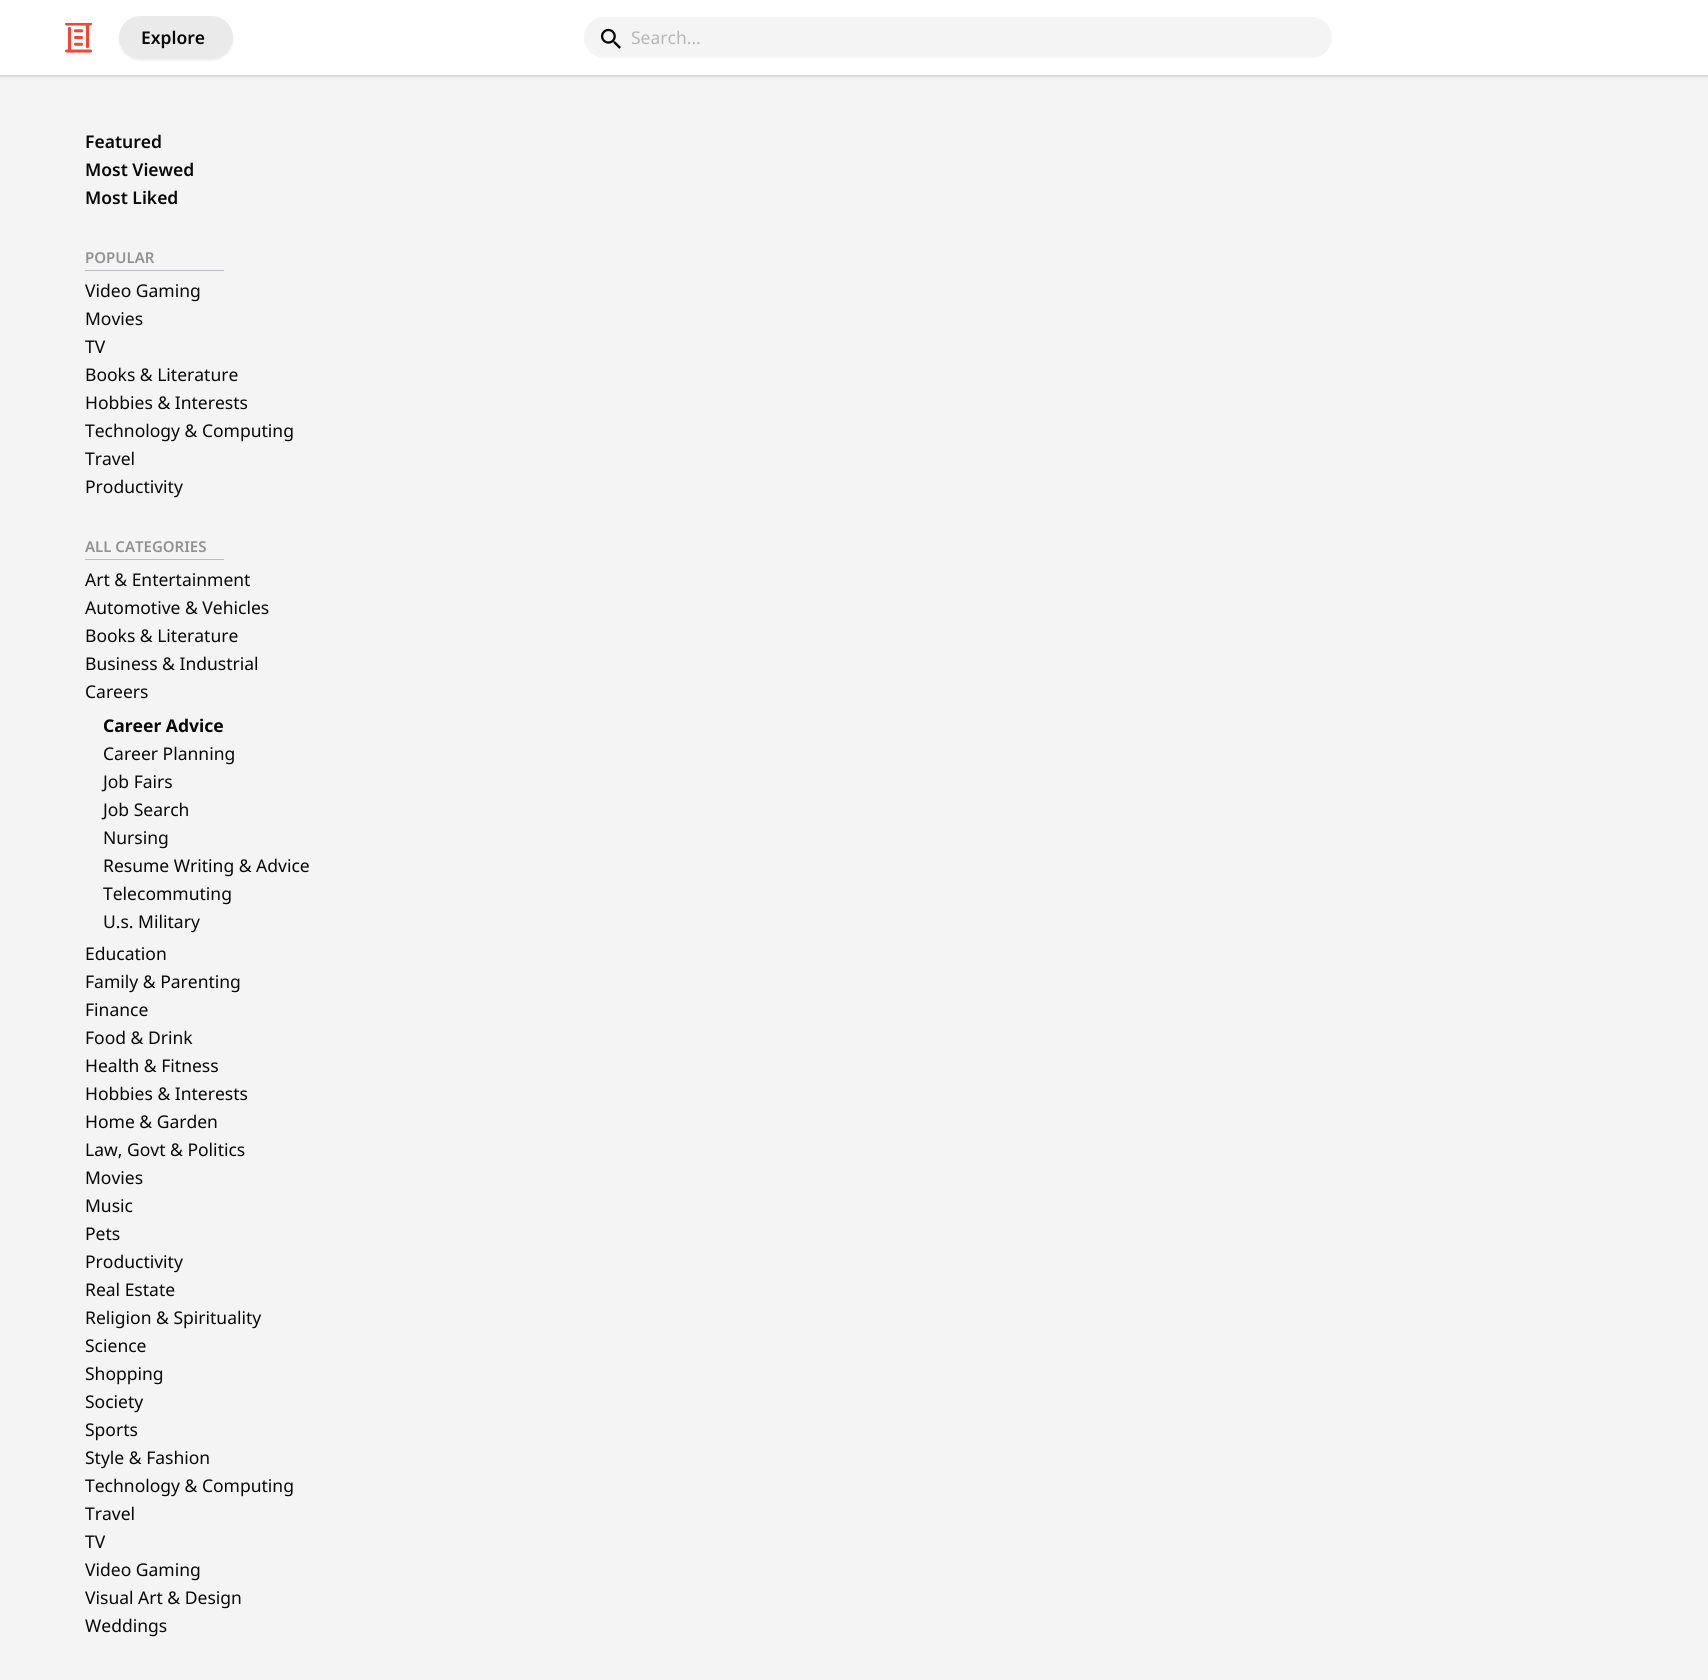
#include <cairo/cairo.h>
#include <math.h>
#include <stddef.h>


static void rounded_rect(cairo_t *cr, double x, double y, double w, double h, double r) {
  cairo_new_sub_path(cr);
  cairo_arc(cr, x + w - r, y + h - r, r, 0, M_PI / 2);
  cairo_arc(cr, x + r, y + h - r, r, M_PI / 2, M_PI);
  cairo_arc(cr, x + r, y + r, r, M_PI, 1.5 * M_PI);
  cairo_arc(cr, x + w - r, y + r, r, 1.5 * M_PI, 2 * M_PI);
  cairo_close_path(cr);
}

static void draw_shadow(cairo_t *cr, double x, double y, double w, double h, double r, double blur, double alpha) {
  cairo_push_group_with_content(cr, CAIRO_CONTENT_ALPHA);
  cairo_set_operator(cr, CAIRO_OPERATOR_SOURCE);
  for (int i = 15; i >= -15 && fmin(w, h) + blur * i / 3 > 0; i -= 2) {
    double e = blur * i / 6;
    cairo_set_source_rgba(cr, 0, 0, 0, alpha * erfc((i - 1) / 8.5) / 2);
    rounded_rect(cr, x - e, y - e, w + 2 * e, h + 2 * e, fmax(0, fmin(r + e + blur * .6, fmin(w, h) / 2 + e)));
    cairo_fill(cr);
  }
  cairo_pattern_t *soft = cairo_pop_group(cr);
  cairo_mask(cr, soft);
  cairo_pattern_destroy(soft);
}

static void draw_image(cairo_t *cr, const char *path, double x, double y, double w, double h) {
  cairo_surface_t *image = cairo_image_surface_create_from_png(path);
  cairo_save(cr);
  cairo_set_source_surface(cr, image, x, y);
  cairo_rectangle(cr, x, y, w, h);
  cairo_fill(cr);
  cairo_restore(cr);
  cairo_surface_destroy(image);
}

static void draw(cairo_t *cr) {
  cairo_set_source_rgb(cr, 244 / 255.0, 244 / 255.0, 245 / 255.0);
  cairo_paint(cr);
  cairo_set_source_rgb(cr, 0, 0, 0);
  draw_shadow(cr, 1, 3, 1707, 72, 0, 1, 0.15);
  draw_shadow(cr, 0, 1, 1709, 75, 0, 2, 0.15);
  cairo_set_source_rgb(cr, 1, 1, 1);
  cairo_rectangle(cr, 0, 0, 1708, 75);
  cairo_fill(cr);
  draw_image(cr, "images/1.png", 65, 23, 27, 30);
  cairo_save(cr);
  cairo_set_fill_rule(cr, CAIRO_FILL_RULE_EVEN_ODD);
  cairo_new_path(cr);
  cairo_move_to(cr, 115, 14);
  cairo_line_to(cr, 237, 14);
  cairo_line_to(cr, 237, 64);
  cairo_line_to(cr, 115, 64);
  cairo_close_path(cr);
  cairo_move_to(cr, 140.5, 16);
  cairo_line_to(cr, 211.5, 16);
  cairo_curve_to(cr, 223.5, 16, 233, 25.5, 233, 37.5);
  cairo_curve_to(cr, 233, 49.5, 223.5, 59, 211.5, 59);
  cairo_line_to(cr, 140.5, 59);
  cairo_curve_to(cr, 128.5, 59, 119, 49.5, 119, 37.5);
  cairo_curve_to(cr, 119, 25.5, 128.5, 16, 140.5, 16);
  cairo_close_path(cr);
  cairo_clip(cr);
  cairo_set_source_rgb(cr, 0, 0, 0);
  draw_shadow(cr, 119, 18, 114, 42, 21, 1, 0.08);
  cairo_restore(cr);
  cairo_set_source_rgba(cr, 113 / 255.0, 113 / 255.0, 123 / 255.0, 0.15);
  rounded_rect(cr, 119, 16, 114, 43, 21.5);
  cairo_fill(cr);
  cairo_set_source_rgb(cr, 244 / 255.0, 244 / 255.0, 245 / 255.0);
  rounded_rect(cr, 583.5, 16.5, 749, 42, 21);
  cairo_fill_preserve(cr);
  cairo_set_source_rgb(cr, 1, 1, 1);
  cairo_set_line_width(cr, 1);
  cairo_stroke(cr);
  draw_image(cr, "images/2.png", 600, 28, 21, 21);
  cairo_set_source_rgb(cr, 188 / 255.0, 188 / 255.0, 195 / 255.0);
  cairo_rectangle(cr, 85, 270, 139, 1);
  cairo_fill(cr);
  cairo_rectangle(cr, 85, 559, 139, 1);
  cairo_fill(cr);
  cairo_select_font_face(cr, "Noto Sans SemiBold", CAIRO_FONT_SLANT_NORMAL, CAIRO_FONT_WEIGHT_NORMAL);
  cairo_set_font_size(cr, 17.5);
  cairo_set_source_rgb(cr, 7 / 255.0, 7 / 255.0, 7 / 255.0);
  cairo_move_to(cr, 141, 44);
  cairo_show_text(cr, "Explore");
  cairo_select_font_face(cr, "Noto Sans", CAIRO_FONT_SLANT_NORMAL, CAIRO_FONT_WEIGHT_NORMAL);
  cairo_set_source_rgb(cr, 183 / 255.0, 183 / 255.0, 184 / 255.0);
  cairo_move_to(cr, 631, 44);
  cairo_show_text(cr, "Search...");
  cairo_select_font_face(cr, "Noto Sans SemiBold", CAIRO_FONT_SLANT_NORMAL, CAIRO_FONT_WEIGHT_NORMAL);
  cairo_set_source_rgb(cr, 7 / 255.0, 7 / 255.0, 7 / 255.0);
  cairo_move_to(cr, 85, 148);
  cairo_show_text(cr, "Featured");
  cairo_move_to(cr, 85, 176);
  cairo_show_text(cr, "Most Viewed");
  cairo_move_to(cr, 85, 204);
  cairo_show_text(cr, "Most Liked");
  cairo_set_font_size(cr, 15);
  cairo_set_source_rgb(cr, 146 / 255.0, 146 / 255.0, 147 / 255.0);
  cairo_move_to(cr, 85, 263);
  cairo_show_text(cr, "POPULAR");
  cairo_select_font_face(cr, "Noto Sans", CAIRO_FONT_SLANT_NORMAL, CAIRO_FONT_WEIGHT_NORMAL);
  cairo_set_font_size(cr, 17.5);
  cairo_set_source_rgb(cr, 7 / 255.0, 7 / 255.0, 7 / 255.0);
  cairo_move_to(cr, 85, 297);
  cairo_show_text(cr, "Video Gaming");
  cairo_move_to(cr, 85, 325);
  cairo_show_text(cr, "Movies");
  cairo_move_to(cr, 85, 353);
  cairo_show_text(cr, "TV");
  cairo_move_to(cr, 85, 381);
  cairo_show_text(cr, "Books & Literature");
  cairo_move_to(cr, 85, 409);
  cairo_show_text(cr, "Hobbies & Interests");
  cairo_move_to(cr, 85, 437);
  cairo_show_text(cr, "Technology & Computing");
  cairo_move_to(cr, 85, 465);
  cairo_show_text(cr, "Travel");
  cairo_move_to(cr, 85, 493);
  cairo_show_text(cr, "Productivity");
  cairo_select_font_face(cr, "Noto Sans SemiBold", CAIRO_FONT_SLANT_NORMAL, CAIRO_FONT_WEIGHT_NORMAL);
  cairo_set_font_size(cr, 15);
  cairo_set_source_rgb(cr, 146 / 255.0, 146 / 255.0, 147 / 255.0);
  cairo_move_to(cr, 85, 552);
  cairo_show_text(cr, "ALL CATEGORIES");
  cairo_select_font_face(cr, "Noto Sans", CAIRO_FONT_SLANT_NORMAL, CAIRO_FONT_WEIGHT_NORMAL);
  cairo_set_font_size(cr, 17.5);
  cairo_set_source_rgb(cr, 7 / 255.0, 7 / 255.0, 7 / 255.0);
  cairo_move_to(cr, 85, 586);
  cairo_show_text(cr, "Art & Entertainment");
  cairo_move_to(cr, 85, 614);
  cairo_show_text(cr, "Automotive & Vehicles");
  cairo_move_to(cr, 85, 642);
  cairo_show_text(cr, "Books & Literature");
  cairo_move_to(cr, 85, 670);
  cairo_show_text(cr, "Business & Industrial");
  cairo_move_to(cr, 85, 698);
  cairo_show_text(cr, "Careers");
  cairo_select_font_face(cr, "Noto Sans", CAIRO_FONT_SLANT_NORMAL, CAIRO_FONT_WEIGHT_BOLD);
  cairo_move_to(cr, 103, 732);
  cairo_show_text(cr, "Career Advice");
  cairo_select_font_face(cr, "Noto Sans", CAIRO_FONT_SLANT_NORMAL, CAIRO_FONT_WEIGHT_NORMAL);
  cairo_move_to(cr, 103, 760);
  cairo_show_text(cr, "Career Planning");
  cairo_move_to(cr, 103, 788);
  cairo_show_text(cr, "Job Fairs");
  cairo_move_to(cr, 103, 816);
  cairo_show_text(cr, "Job Search");
  cairo_move_to(cr, 103, 844);
  cairo_show_text(cr, "Nursing");
  cairo_move_to(cr, 103, 872);
  cairo_show_text(cr, "Resume Writing & Advice");
  cairo_move_to(cr, 103, 900);
  cairo_show_text(cr, "Telecommuting");
  cairo_move_to(cr, 103, 928);
  cairo_show_text(cr, "U.s. Military");
  cairo_move_to(cr, 85, 960);
  cairo_show_text(cr, "Education");
  cairo_move_to(cr, 85, 988);
  cairo_show_text(cr, "Family & Parenting");
  cairo_move_to(cr, 85, 1016);
  cairo_show_text(cr, "Finance");
  cairo_move_to(cr, 85, 1044);
  cairo_show_text(cr, "Food & Drink");
  cairo_move_to(cr, 85, 1072);
  cairo_show_text(cr, "Health & Fitness");
  cairo_move_to(cr, 85, 1100);
  cairo_show_text(cr, "Hobbies & Interests");
  cairo_move_to(cr, 85, 1128);
  cairo_show_text(cr, "Home & Garden");
  cairo_move_to(cr, 85, 1156);
  cairo_show_text(cr, "Law, Govt & Politics");
  cairo_move_to(cr, 85, 1184);
  cairo_show_text(cr, "Movies");
  cairo_move_to(cr, 85, 1212);
  cairo_show_text(cr, "Music");
  cairo_move_to(cr, 85, 1240);
  cairo_show_text(cr, "Pets");
  cairo_move_to(cr, 85, 1268);
  cairo_show_text(cr, "Productivity");
  cairo_move_to(cr, 85, 1296);
  cairo_show_text(cr, "Real Estate");
  cairo_move_to(cr, 85, 1324);
  cairo_show_text(cr, "Religion & Spirituality");
  cairo_move_to(cr, 85, 1352);
  cairo_show_text(cr, "Science");
  cairo_move_to(cr, 85, 1380);
  cairo_show_text(cr, "Shopping");
  cairo_move_to(cr, 85, 1408);
  cairo_show_text(cr, "Society");
  cairo_move_to(cr, 85, 1436);
  cairo_show_text(cr, "Sports");
  cairo_move_to(cr, 85, 1464);
  cairo_show_text(cr, "Style & Fashion");
  cairo_move_to(cr, 85, 1492);
  cairo_show_text(cr, "Technology & Computing");
  cairo_move_to(cr, 85, 1520);
  cairo_show_text(cr, "Travel");
  cairo_move_to(cr, 85, 1548);
  cairo_show_text(cr, "TV");
  cairo_move_to(cr, 85, 1576);
  cairo_show_text(cr, "Video Gaming");
  cairo_move_to(cr, 85, 1604);
  cairo_show_text(cr, "Visual Art & Design");
  cairo_move_to(cr, 85, 1632);
  cairo_show_text(cr, "Weddings");
}

int main(void) {
  cairo_surface_t *surface = cairo_image_surface_create(CAIRO_FORMAT_RGB24, 1708, 1680);
  cairo_t *cr = cairo_create(surface);
  cairo_font_options_t *options = cairo_font_options_create();
  cairo_font_options_set_hint_metrics(options, CAIRO_HINT_METRICS_OFF);
  cairo_font_options_set_hint_style(options, CAIRO_HINT_STYLE_NONE);
  cairo_set_font_options(cr, options);
  cairo_set_miter_limit(cr, 4);
  draw(cr);
  cairo_surface_write_to_png(surface, "out.png");
  cairo_font_options_destroy(options);
  cairo_destroy(cr);
  cairo_surface_destroy(surface);
  return 0;
}
